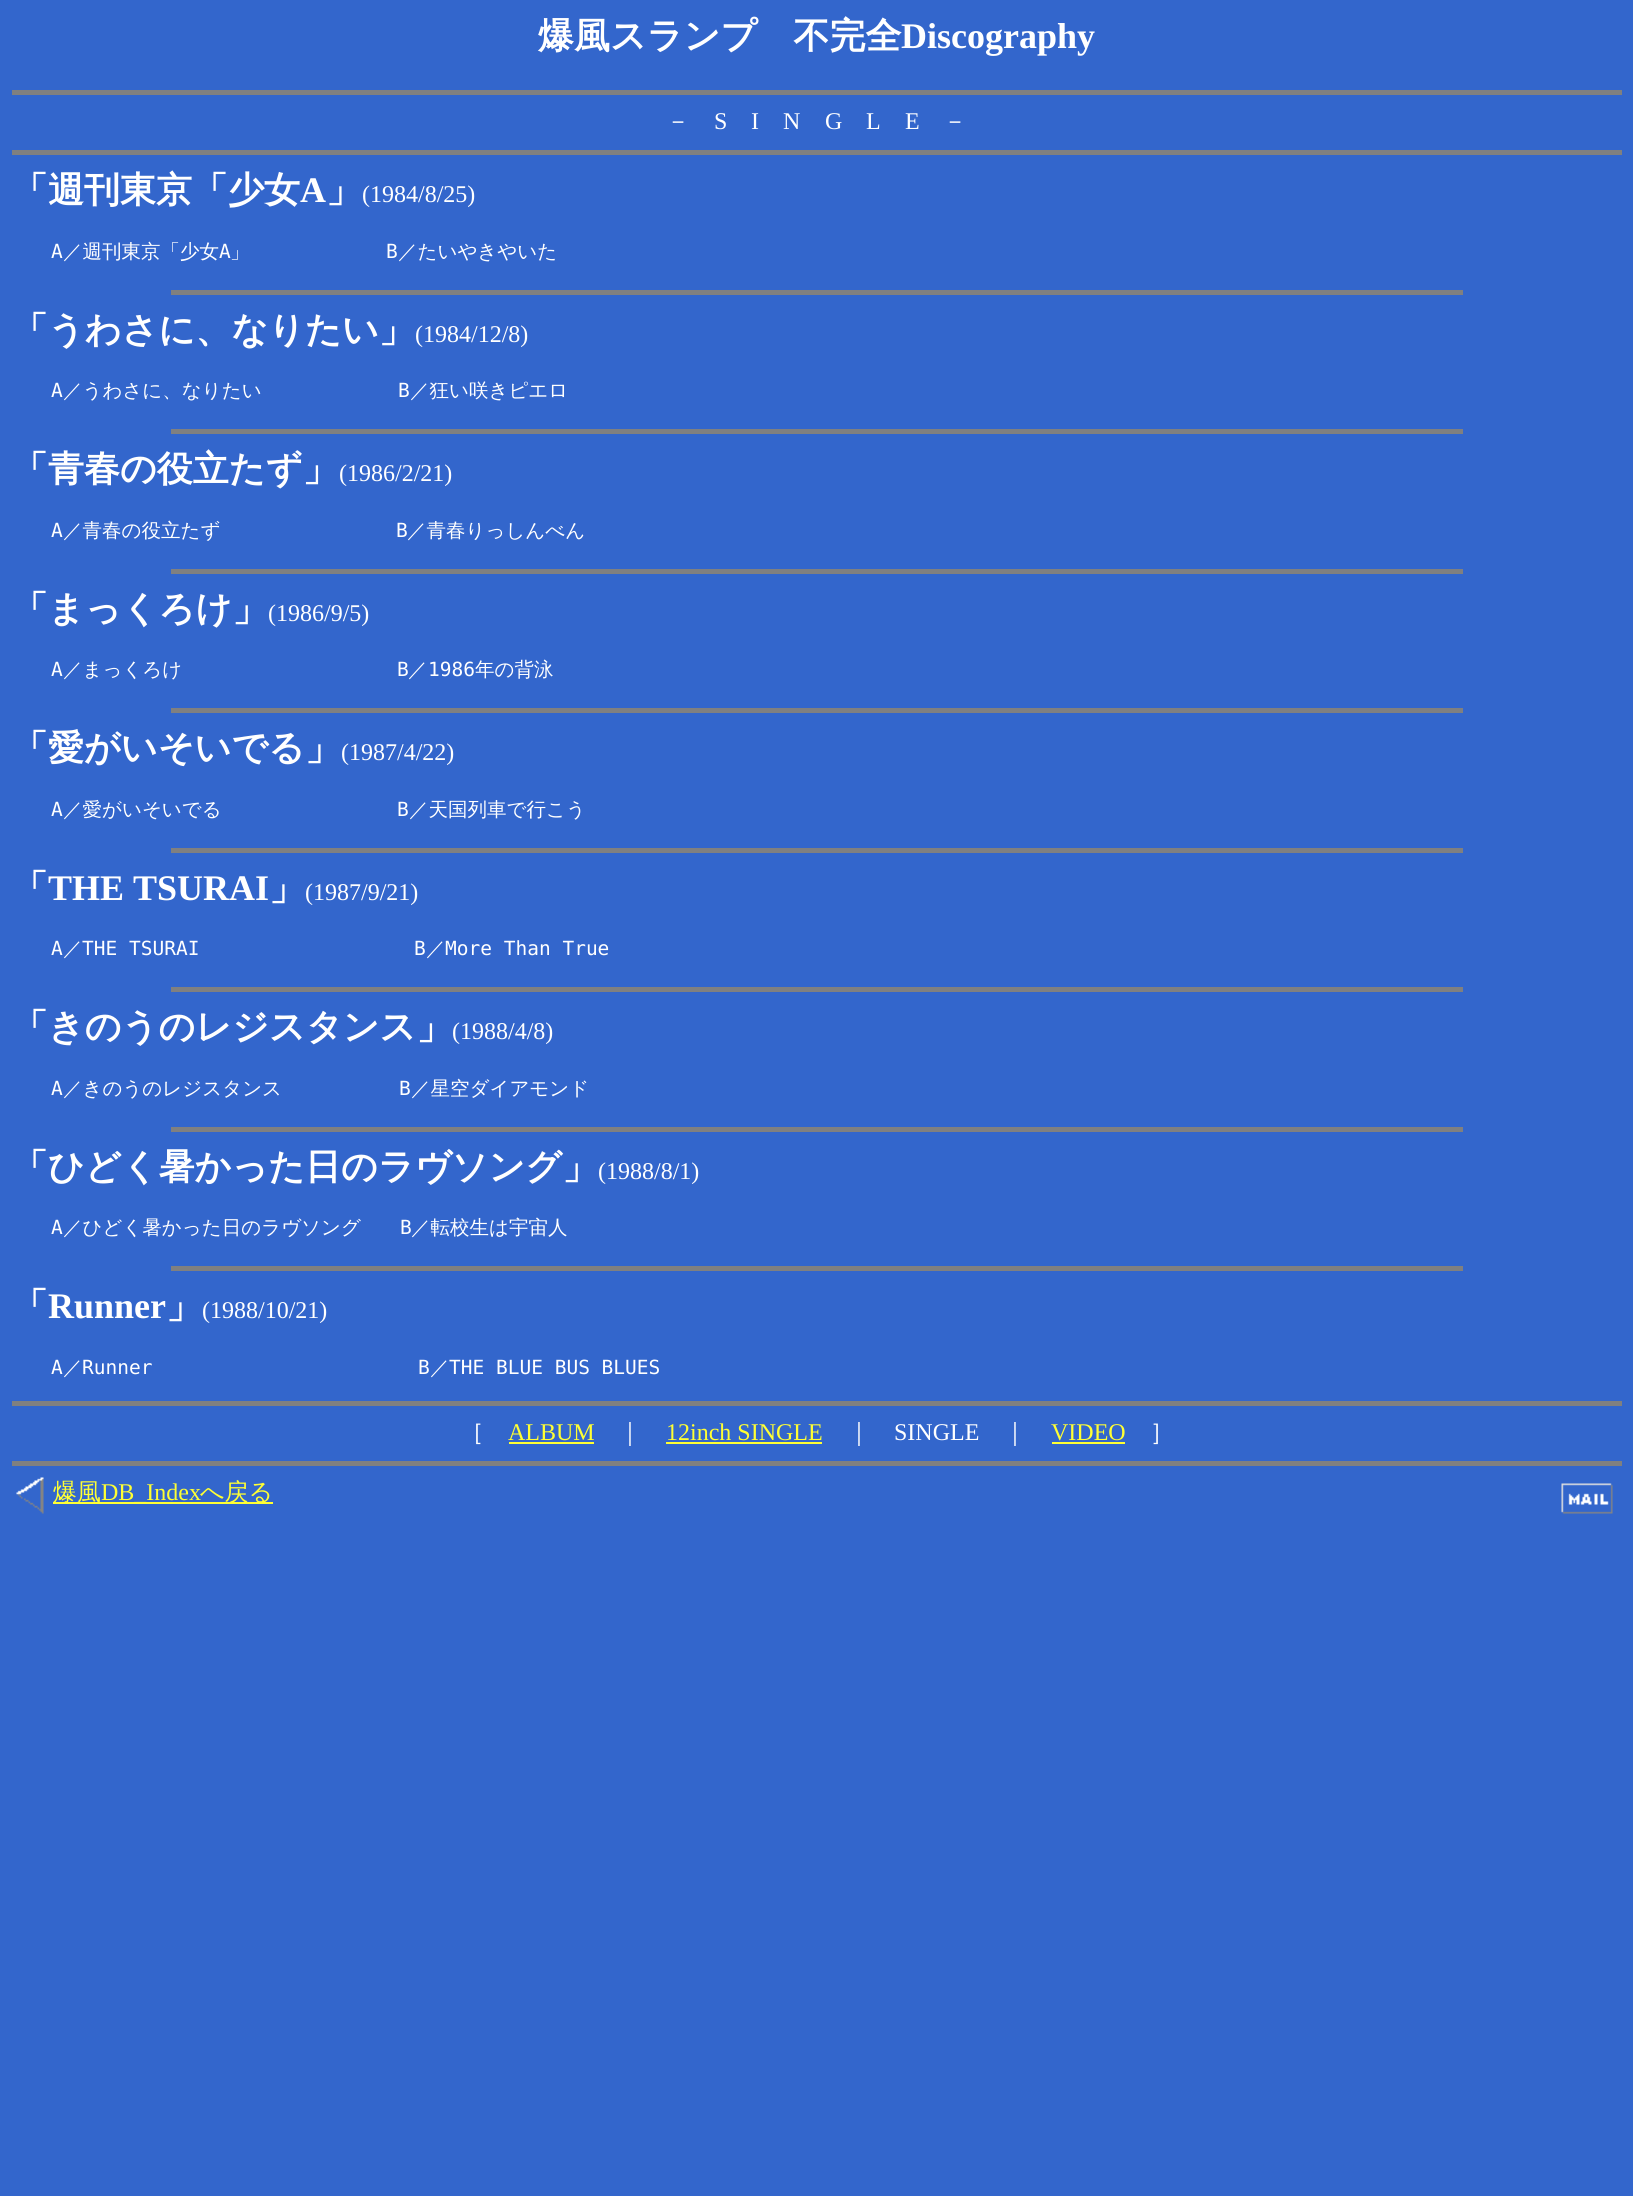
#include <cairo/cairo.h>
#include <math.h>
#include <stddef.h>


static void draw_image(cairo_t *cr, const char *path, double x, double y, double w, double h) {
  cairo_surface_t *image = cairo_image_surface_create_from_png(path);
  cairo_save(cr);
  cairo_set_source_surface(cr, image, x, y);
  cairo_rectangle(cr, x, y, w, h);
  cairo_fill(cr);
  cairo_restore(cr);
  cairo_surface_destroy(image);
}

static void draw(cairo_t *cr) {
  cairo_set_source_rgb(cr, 51 / 255.0, 102 / 255.0, 204 / 255.0);
  cairo_paint(cr);
  cairo_set_source_rgb(cr, 128 / 255.0, 128 / 255.0, 128 / 255.0);
  cairo_rectangle(cr, 12, 90, 1610, 5);
  cairo_fill(cr);
  cairo_rectangle(cr, 12, 150, 1610, 5);
  cairo_fill(cr);
  cairo_rectangle(cr, 171, 290, 1292, 5);
  cairo_fill(cr);
  cairo_rectangle(cr, 171, 429, 1292, 5);
  cairo_fill(cr);
  cairo_rectangle(cr, 171, 569, 1292, 5);
  cairo_fill(cr);
  cairo_rectangle(cr, 171, 708, 1292, 5);
  cairo_fill(cr);
  cairo_rectangle(cr, 171, 848, 1292, 5);
  cairo_fill(cr);
  cairo_rectangle(cr, 171, 987, 1292, 5);
  cairo_fill(cr);
  cairo_rectangle(cr, 171, 1127, 1292, 5);
  cairo_fill(cr);
  cairo_rectangle(cr, 171, 1266, 1292, 5);
  cairo_fill(cr);
  cairo_rectangle(cr, 12, 1401, 1610, 5);
  cairo_fill(cr);
  cairo_set_source_rgb(cr, 1, 1, 51 / 255.0);
  cairo_rectangle(cr, 509, 1442, 85, 2);
  cairo_fill(cr);
  cairo_rectangle(cr, 666, 1442, 156, 2);
  cairo_fill(cr);
  cairo_rectangle(cr, 1052, 1442, 73, 2);
  cairo_fill(cr);
  cairo_set_source_rgb(cr, 128 / 255.0, 128 / 255.0, 128 / 255.0);
  cairo_rectangle(cr, 12, 1461, 1610, 5);
  cairo_fill(cr);
  draw_image(cr, "images/1.png", 16, 1477, 28, 37);
  cairo_set_source_rgb(cr, 1, 1, 51 / 255.0);
  cairo_rectangle(cr, 53, 1502, 220, 2);
  cairo_fill(cr);
  draw_image(cr, "images/2.png", 1561, 1483, 52, 31);
  cairo_select_font_face(cr, "WenQuanYi Zen Hei", CAIRO_FONT_SLANT_NORMAL, CAIRO_FONT_WEIGHT_BOLD);
  cairo_set_font_size(cr, 36);
  cairo_set_source_rgb(cr, 1, 1, 1);
  cairo_move_to(cr, 538, 48);
  cairo_show_text(cr, "爆風スランプ　不完全");
  cairo_select_font_face(cr, "Liberation Serif", CAIRO_FONT_SLANT_NORMAL, CAIRO_FONT_WEIGHT_BOLD);
  cairo_move_to(cr, 901, 48);
  cairo_show_text(cr, "Discography");
  cairo_select_font_face(cr, "WenQuanYi Zen Hei Medium", CAIRO_FONT_SLANT_NORMAL, CAIRO_FONT_WEIGHT_NORMAL);
  cairo_set_font_size(cr, 24);
  cairo_move_to(cr, 666, 129);
  cairo_show_text(cr, "－");
  cairo_select_font_face(cr, "Liberation Serif", CAIRO_FONT_SLANT_NORMAL, CAIRO_FONT_WEIGHT_NORMAL);
  cairo_move_to(cr, 714, 129);
  cairo_show_text(cr, "S");
  cairo_move_to(cr, 751, 129);
  cairo_show_text(cr, "I");
  cairo_move_to(cr, 783, 129);
  cairo_show_text(cr, "N");
  cairo_move_to(cr, 825, 129);
  cairo_show_text(cr, "G");
  cairo_move_to(cr, 866, 129);
  cairo_show_text(cr, "L");
  cairo_move_to(cr, 905, 129);
  cairo_show_text(cr, "E");
  cairo_select_font_face(cr, "WenQuanYi Zen Hei Medium", CAIRO_FONT_SLANT_NORMAL, CAIRO_FONT_WEIGHT_NORMAL);
  cairo_move_to(cr, 943, 129);
  cairo_show_text(cr, "－");
  cairo_select_font_face(cr, "WenQuanYi Zen Hei", CAIRO_FONT_SLANT_NORMAL, CAIRO_FONT_WEIGHT_BOLD);
  cairo_set_font_size(cr, 36);
  cairo_move_to(cr, 12, 202);
  cairo_show_text(cr, "「週刊東京「少女");
  cairo_select_font_face(cr, "Liberation Serif", CAIRO_FONT_SLANT_NORMAL, CAIRO_FONT_WEIGHT_BOLD);
  cairo_move_to(cr, 300, 202);
  cairo_show_text(cr, "A");
  cairo_select_font_face(cr, "WenQuanYi Zen Hei", CAIRO_FONT_SLANT_NORMAL, CAIRO_FONT_WEIGHT_BOLD);
  cairo_move_to(cr, 326, 202);
  cairo_show_text(cr, "」");
  cairo_select_font_face(cr, "Liberation Serif", CAIRO_FONT_SLANT_NORMAL, CAIRO_FONT_WEIGHT_NORMAL);
  cairo_set_font_size(cr, 24);
  cairo_move_to(cr, 362, 202);
  cairo_show_text(cr, "(1984/8/25)");
  cairo_select_font_face(cr, "DejaVu Sans Mono", CAIRO_FONT_SLANT_NORMAL, CAIRO_FONT_WEIGHT_NORMAL);
  cairo_set_font_size(cr, 19.5);
  cairo_move_to(cr, 51, 258);
  cairo_show_text(cr, "A");
  cairo_select_font_face(cr, "WenQuanYi Zen Hei Medium", CAIRO_FONT_SLANT_NORMAL, CAIRO_FONT_WEIGHT_NORMAL);
  cairo_move_to(cr, 63, 258);
  cairo_show_text(cr, "／週刊東京「少女");
  cairo_select_font_face(cr, "DejaVu Sans Mono", CAIRO_FONT_SLANT_NORMAL, CAIRO_FONT_WEIGHT_NORMAL);
  cairo_move_to(cr, 219, 258);
  cairo_show_text(cr, "A");
  cairo_select_font_face(cr, "WenQuanYi Zen Hei Medium", CAIRO_FONT_SLANT_NORMAL, CAIRO_FONT_WEIGHT_NORMAL);
  cairo_move_to(cr, 230, 258);
  cairo_show_text(cr, "」");
  cairo_select_font_face(cr, "DejaVu Sans Mono", CAIRO_FONT_SLANT_NORMAL, CAIRO_FONT_WEIGHT_NORMAL);
  cairo_move_to(cr, 386, 258);
  cairo_show_text(cr, "B");
  cairo_select_font_face(cr, "WenQuanYi Zen Hei Medium", CAIRO_FONT_SLANT_NORMAL, CAIRO_FONT_WEIGHT_NORMAL);
  cairo_move_to(cr, 398, 258);
  cairo_show_text(cr, "／たいやきやいた");
  cairo_select_font_face(cr, "WenQuanYi Zen Hei", CAIRO_FONT_SLANT_NORMAL, CAIRO_FONT_WEIGHT_BOLD);
  cairo_set_font_size(cr, 36);
  cairo_move_to(cr, 12, 342);
  cairo_show_text(cr, "「うわさに、なりたい」");
  cairo_select_font_face(cr, "Liberation Serif", CAIRO_FONT_SLANT_NORMAL, CAIRO_FONT_WEIGHT_NORMAL);
  cairo_set_font_size(cr, 24);
  cairo_move_to(cr, 415, 342);
  cairo_show_text(cr, "(1984/12/8)");
  cairo_select_font_face(cr, "DejaVu Sans Mono", CAIRO_FONT_SLANT_NORMAL, CAIRO_FONT_WEIGHT_NORMAL);
  cairo_set_font_size(cr, 19.5);
  cairo_move_to(cr, 51, 397);
  cairo_show_text(cr, "A");
  cairo_select_font_face(cr, "WenQuanYi Zen Hei Medium", CAIRO_FONT_SLANT_NORMAL, CAIRO_FONT_WEIGHT_NORMAL);
  cairo_move_to(cr, 63, 397);
  cairo_show_text(cr, "／うわさに、なりたい");
  cairo_select_font_face(cr, "DejaVu Sans Mono", CAIRO_FONT_SLANT_NORMAL, CAIRO_FONT_WEIGHT_NORMAL);
  cairo_move_to(cr, 398, 397);
  cairo_show_text(cr, "B");
  cairo_select_font_face(cr, "WenQuanYi Zen Hei Medium", CAIRO_FONT_SLANT_NORMAL, CAIRO_FONT_WEIGHT_NORMAL);
  cairo_move_to(cr, 410, 397);
  cairo_show_text(cr, "／狂い咲きピエロ");
  cairo_select_font_face(cr, "WenQuanYi Zen Hei", CAIRO_FONT_SLANT_NORMAL, CAIRO_FONT_WEIGHT_BOLD);
  cairo_set_font_size(cr, 36);
  cairo_move_to(cr, 12, 481);
  cairo_show_text(cr, "「青春の役立たず」");
  cairo_select_font_face(cr, "Liberation Serif", CAIRO_FONT_SLANT_NORMAL, CAIRO_FONT_WEIGHT_NORMAL);
  cairo_set_font_size(cr, 24);
  cairo_move_to(cr, 339, 481);
  cairo_show_text(cr, "(1986/2/21)");
  cairo_select_font_face(cr, "DejaVu Sans Mono", CAIRO_FONT_SLANT_NORMAL, CAIRO_FONT_WEIGHT_NORMAL);
  cairo_set_font_size(cr, 19.5);
  cairo_move_to(cr, 51, 537);
  cairo_show_text(cr, "A");
  cairo_select_font_face(cr, "WenQuanYi Zen Hei Medium", CAIRO_FONT_SLANT_NORMAL, CAIRO_FONT_WEIGHT_NORMAL);
  cairo_move_to(cr, 63, 537);
  cairo_show_text(cr, "／青春の役立たず");
  cairo_select_font_face(cr, "DejaVu Sans Mono", CAIRO_FONT_SLANT_NORMAL, CAIRO_FONT_WEIGHT_NORMAL);
  cairo_move_to(cr, 396, 537);
  cairo_show_text(cr, "B");
  cairo_select_font_face(cr, "WenQuanYi Zen Hei Medium", CAIRO_FONT_SLANT_NORMAL, CAIRO_FONT_WEIGHT_NORMAL);
  cairo_move_to(cr, 407, 537);
  cairo_show_text(cr, "／青春りっしんべん");
  cairo_select_font_face(cr, "WenQuanYi Zen Hei", CAIRO_FONT_SLANT_NORMAL, CAIRO_FONT_WEIGHT_BOLD);
  cairo_set_font_size(cr, 36);
  cairo_move_to(cr, 12, 621);
  cairo_show_text(cr, "「まっくろけ」");
  cairo_select_font_face(cr, "Liberation Serif", CAIRO_FONT_SLANT_NORMAL, CAIRO_FONT_WEIGHT_NORMAL);
  cairo_set_font_size(cr, 24);
  cairo_move_to(cr, 268, 621);
  cairo_show_text(cr, "(1986/9/5)");
  cairo_select_font_face(cr, "DejaVu Sans Mono", CAIRO_FONT_SLANT_NORMAL, CAIRO_FONT_WEIGHT_NORMAL);
  cairo_set_font_size(cr, 19.5);
  cairo_move_to(cr, 51, 676);
  cairo_show_text(cr, "A");
  cairo_select_font_face(cr, "WenQuanYi Zen Hei Medium", CAIRO_FONT_SLANT_NORMAL, CAIRO_FONT_WEIGHT_NORMAL);
  cairo_move_to(cr, 63, 676);
  cairo_show_text(cr, "／まっくろけ");
  cairo_select_font_face(cr, "DejaVu Sans Mono", CAIRO_FONT_SLANT_NORMAL, CAIRO_FONT_WEIGHT_NORMAL);
  cairo_move_to(cr, 397, 676);
  cairo_show_text(cr, "B");
  cairo_select_font_face(cr, "WenQuanYi Zen Hei Medium", CAIRO_FONT_SLANT_NORMAL, CAIRO_FONT_WEIGHT_NORMAL);
  cairo_move_to(cr, 408, 676);
  cairo_show_text(cr, "／");
  cairo_select_font_face(cr, "DejaVu Sans Mono", CAIRO_FONT_SLANT_NORMAL, CAIRO_FONT_WEIGHT_NORMAL);
  cairo_move_to(cr, 428, 676);
  cairo_show_text(cr, "1986");
  cairo_select_font_face(cr, "WenQuanYi Zen Hei Medium", CAIRO_FONT_SLANT_NORMAL, CAIRO_FONT_WEIGHT_NORMAL);
  cairo_move_to(cr, 475, 676);
  cairo_show_text(cr, "年の背泳");
  cairo_select_font_face(cr, "WenQuanYi Zen Hei", CAIRO_FONT_SLANT_NORMAL, CAIRO_FONT_WEIGHT_BOLD);
  cairo_set_font_size(cr, 36);
  cairo_move_to(cr, 12, 760);
  cairo_show_text(cr, "「愛がいそいでる」");
  cairo_select_font_face(cr, "Liberation Serif", CAIRO_FONT_SLANT_NORMAL, CAIRO_FONT_WEIGHT_NORMAL);
  cairo_set_font_size(cr, 24);
  cairo_move_to(cr, 341, 760);
  cairo_show_text(cr, "(1987/4/22)");
  cairo_select_font_face(cr, "DejaVu Sans Mono", CAIRO_FONT_SLANT_NORMAL, CAIRO_FONT_WEIGHT_NORMAL);
  cairo_set_font_size(cr, 19.5);
  cairo_move_to(cr, 51, 816);
  cairo_show_text(cr, "A");
  cairo_select_font_face(cr, "WenQuanYi Zen Hei Medium", CAIRO_FONT_SLANT_NORMAL, CAIRO_FONT_WEIGHT_NORMAL);
  cairo_move_to(cr, 63, 816);
  cairo_show_text(cr, "／愛がいそいでる");
  cairo_select_font_face(cr, "DejaVu Sans Mono", CAIRO_FONT_SLANT_NORMAL, CAIRO_FONT_WEIGHT_NORMAL);
  cairo_move_to(cr, 397, 816);
  cairo_show_text(cr, "B");
  cairo_select_font_face(cr, "WenQuanYi Zen Hei Medium", CAIRO_FONT_SLANT_NORMAL, CAIRO_FONT_WEIGHT_NORMAL);
  cairo_move_to(cr, 409, 816);
  cairo_show_text(cr, "／天国列車で行こう");
  cairo_select_font_face(cr, "WenQuanYi Zen Hei", CAIRO_FONT_SLANT_NORMAL, CAIRO_FONT_WEIGHT_BOLD);
  cairo_set_font_size(cr, 36);
  cairo_move_to(cr, 12, 900);
  cairo_show_text(cr, "「");
  cairo_select_font_face(cr, "Liberation Serif", CAIRO_FONT_SLANT_NORMAL, CAIRO_FONT_WEIGHT_BOLD);
  cairo_move_to(cr, 48, 900);
  cairo_show_text(cr, "THE TSURAI");
  cairo_select_font_face(cr, "WenQuanYi Zen Hei", CAIRO_FONT_SLANT_NORMAL, CAIRO_FONT_WEIGHT_BOLD);
  cairo_move_to(cr, 269, 900);
  cairo_show_text(cr, "」");
  cairo_select_font_face(cr, "Liberation Serif", CAIRO_FONT_SLANT_NORMAL, CAIRO_FONT_WEIGHT_NORMAL);
  cairo_set_font_size(cr, 24);
  cairo_move_to(cr, 305, 900);
  cairo_show_text(cr, "(1987/9/21)");
  cairo_select_font_face(cr, "DejaVu Sans Mono", CAIRO_FONT_SLANT_NORMAL, CAIRO_FONT_WEIGHT_NORMAL);
  cairo_set_font_size(cr, 19.5);
  cairo_move_to(cr, 51, 955);
  cairo_show_text(cr, "A");
  cairo_select_font_face(cr, "WenQuanYi Zen Hei Medium", CAIRO_FONT_SLANT_NORMAL, CAIRO_FONT_WEIGHT_NORMAL);
  cairo_move_to(cr, 63, 955);
  cairo_show_text(cr, "／");
  cairo_select_font_face(cr, "DejaVu Sans Mono", CAIRO_FONT_SLANT_NORMAL, CAIRO_FONT_WEIGHT_NORMAL);
  cairo_move_to(cr, 82, 955);
  cairo_show_text(cr, "THE TSURAI");
  cairo_move_to(cr, 414, 955);
  cairo_show_text(cr, "B");
  cairo_select_font_face(cr, "WenQuanYi Zen Hei Medium", CAIRO_FONT_SLANT_NORMAL, CAIRO_FONT_WEIGHT_NORMAL);
  cairo_move_to(cr, 426, 955);
  cairo_show_text(cr, "／");
  cairo_select_font_face(cr, "DejaVu Sans Mono", CAIRO_FONT_SLANT_NORMAL, CAIRO_FONT_WEIGHT_NORMAL);
  cairo_move_to(cr, 445, 955);
  cairo_show_text(cr, "More Than True");
  cairo_select_font_face(cr, "WenQuanYi Zen Hei", CAIRO_FONT_SLANT_NORMAL, CAIRO_FONT_WEIGHT_BOLD);
  cairo_set_font_size(cr, 36);
  cairo_move_to(cr, 12, 1039);
  cairo_show_text(cr, "「きのうのレジスタンス」");
  cairo_select_font_face(cr, "Liberation Serif", CAIRO_FONT_SLANT_NORMAL, CAIRO_FONT_WEIGHT_NORMAL);
  cairo_set_font_size(cr, 24);
  cairo_move_to(cr, 452, 1039);
  cairo_show_text(cr, "(1988/4/8)");
  cairo_select_font_face(cr, "DejaVu Sans Mono", CAIRO_FONT_SLANT_NORMAL, CAIRO_FONT_WEIGHT_NORMAL);
  cairo_set_font_size(cr, 19.5);
  cairo_move_to(cr, 51, 1095);
  cairo_show_text(cr, "A");
  cairo_select_font_face(cr, "WenQuanYi Zen Hei Medium", CAIRO_FONT_SLANT_NORMAL, CAIRO_FONT_WEIGHT_NORMAL);
  cairo_move_to(cr, 63, 1095);
  cairo_show_text(cr, "／きのうのレジスタンス");
  cairo_select_font_face(cr, "DejaVu Sans Mono", CAIRO_FONT_SLANT_NORMAL, CAIRO_FONT_WEIGHT_NORMAL);
  cairo_move_to(cr, 399, 1095);
  cairo_show_text(cr, "B");
  cairo_select_font_face(cr, "WenQuanYi Zen Hei Medium", CAIRO_FONT_SLANT_NORMAL, CAIRO_FONT_WEIGHT_NORMAL);
  cairo_move_to(cr, 411, 1095);
  cairo_show_text(cr, "／星空ダイアモンド");
  cairo_select_font_face(cr, "WenQuanYi Zen Hei", CAIRO_FONT_SLANT_NORMAL, CAIRO_FONT_WEIGHT_BOLD);
  cairo_set_font_size(cr, 36);
  cairo_move_to(cr, 12, 1179);
  cairo_show_text(cr, "「ひどく暑かった日のラヴソング」");
  cairo_select_font_face(cr, "Liberation Serif", CAIRO_FONT_SLANT_NORMAL, CAIRO_FONT_WEIGHT_NORMAL);
  cairo_set_font_size(cr, 24);
  cairo_move_to(cr, 598, 1179);
  cairo_show_text(cr, "(1988/8/1)");
  cairo_select_font_face(cr, "DejaVu Sans Mono", CAIRO_FONT_SLANT_NORMAL, CAIRO_FONT_WEIGHT_NORMAL);
  cairo_set_font_size(cr, 19.5);
  cairo_move_to(cr, 51, 1234);
  cairo_show_text(cr, "A");
  cairo_select_font_face(cr, "WenQuanYi Zen Hei Medium", CAIRO_FONT_SLANT_NORMAL, CAIRO_FONT_WEIGHT_NORMAL);
  cairo_move_to(cr, 63, 1234);
  cairo_show_text(cr, "／ひどく暑かった日のラヴソング");
  cairo_select_font_face(cr, "DejaVu Sans Mono", CAIRO_FONT_SLANT_NORMAL, CAIRO_FONT_WEIGHT_NORMAL);
  cairo_move_to(cr, 400, 1234);
  cairo_show_text(cr, "B");
  cairo_select_font_face(cr, "WenQuanYi Zen Hei Medium", CAIRO_FONT_SLANT_NORMAL, CAIRO_FONT_WEIGHT_NORMAL);
  cairo_move_to(cr, 411, 1234);
  cairo_show_text(cr, "／転校生は宇宙人");
  cairo_select_font_face(cr, "WenQuanYi Zen Hei", CAIRO_FONT_SLANT_NORMAL, CAIRO_FONT_WEIGHT_BOLD);
  cairo_set_font_size(cr, 36);
  cairo_move_to(cr, 12, 1318);
  cairo_show_text(cr, "「");
  cairo_select_font_face(cr, "Liberation Serif", CAIRO_FONT_SLANT_NORMAL, CAIRO_FONT_WEIGHT_BOLD);
  cairo_move_to(cr, 48, 1318);
  cairo_show_text(cr, "Runner");
  cairo_select_font_face(cr, "WenQuanYi Zen Hei", CAIRO_FONT_SLANT_NORMAL, CAIRO_FONT_WEIGHT_BOLD);
  cairo_move_to(cr, 166, 1318);
  cairo_show_text(cr, "」");
  cairo_select_font_face(cr, "Liberation Serif", CAIRO_FONT_SLANT_NORMAL, CAIRO_FONT_WEIGHT_NORMAL);
  cairo_set_font_size(cr, 24);
  cairo_move_to(cr, 202, 1318);
  cairo_show_text(cr, "(1988/10/21)");
  cairo_select_font_face(cr, "DejaVu Sans Mono", CAIRO_FONT_SLANT_NORMAL, CAIRO_FONT_WEIGHT_NORMAL);
  cairo_set_font_size(cr, 19.5);
  cairo_move_to(cr, 51, 1374);
  cairo_show_text(cr, "A");
  cairo_select_font_face(cr, "WenQuanYi Zen Hei Medium", CAIRO_FONT_SLANT_NORMAL, CAIRO_FONT_WEIGHT_NORMAL);
  cairo_move_to(cr, 63, 1374);
  cairo_show_text(cr, "／");
  cairo_select_font_face(cr, "DejaVu Sans Mono", CAIRO_FONT_SLANT_NORMAL, CAIRO_FONT_WEIGHT_NORMAL);
  cairo_move_to(cr, 82, 1374);
  cairo_show_text(cr, "Runner");
  cairo_move_to(cr, 418, 1374);
  cairo_show_text(cr, "B");
  cairo_select_font_face(cr, "WenQuanYi Zen Hei Medium", CAIRO_FONT_SLANT_NORMAL, CAIRO_FONT_WEIGHT_NORMAL);
  cairo_move_to(cr, 430, 1374);
  cairo_show_text(cr, "／");
  cairo_select_font_face(cr, "DejaVu Sans Mono", CAIRO_FONT_SLANT_NORMAL, CAIRO_FONT_WEIGHT_NORMAL);
  cairo_move_to(cr, 449, 1374);
  cairo_show_text(cr, "THE BLUE BUS BLUES");
  cairo_select_font_face(cr, "WenQuanYi Zen Hei Medium", CAIRO_FONT_SLANT_NORMAL, CAIRO_FONT_WEIGHT_NORMAL);
  cairo_set_font_size(cr, 24);
  cairo_move_to(cr, 460, 1440);
  cairo_show_text(cr, "［");
  cairo_select_font_face(cr, "Liberation Serif", CAIRO_FONT_SLANT_NORMAL, CAIRO_FONT_WEIGHT_NORMAL);
  cairo_set_source_rgb(cr, 1, 1, 51 / 255.0);
  cairo_move_to(cr, 508, 1440);
  cairo_show_text(cr, "ALBUM");
  cairo_select_font_face(cr, "WenQuanYi Zen Hei Medium", CAIRO_FONT_SLANT_NORMAL, CAIRO_FONT_WEIGHT_NORMAL);
  cairo_set_source_rgb(cr, 1, 1, 1);
  cairo_move_to(cr, 618, 1440);
  cairo_show_text(cr, "｜");
  cairo_select_font_face(cr, "Liberation Serif", CAIRO_FONT_SLANT_NORMAL, CAIRO_FONT_WEIGHT_NORMAL);
  cairo_set_source_rgb(cr, 1, 1, 51 / 255.0);
  cairo_move_to(cr, 666, 1440);
  cairo_show_text(cr, "12inch SINGLE");
  cairo_select_font_face(cr, "WenQuanYi Zen Hei Medium", CAIRO_FONT_SLANT_NORMAL, CAIRO_FONT_WEIGHT_NORMAL);
  cairo_set_source_rgb(cr, 1, 1, 1);
  cairo_move_to(cr, 847, 1440);
  cairo_show_text(cr, "｜");
  cairo_select_font_face(cr, "Liberation Serif", CAIRO_FONT_SLANT_NORMAL, CAIRO_FONT_WEIGHT_NORMAL);
  cairo_move_to(cr, 894, 1440);
  cairo_show_text(cr, "SINGLE");
  cairo_select_font_face(cr, "WenQuanYi Zen Hei Medium", CAIRO_FONT_SLANT_NORMAL, CAIRO_FONT_WEIGHT_NORMAL);
  cairo_move_to(cr, 1003, 1440);
  cairo_show_text(cr, "｜");
  cairo_select_font_face(cr, "Liberation Serif", CAIRO_FONT_SLANT_NORMAL, CAIRO_FONT_WEIGHT_NORMAL);
  cairo_set_source_rgb(cr, 1, 1, 51 / 255.0);
  cairo_move_to(cr, 1051, 1440);
  cairo_show_text(cr, "VIDEO");
  cairo_select_font_face(cr, "WenQuanYi Zen Hei Medium", CAIRO_FONT_SLANT_NORMAL, CAIRO_FONT_WEIGHT_NORMAL);
  cairo_set_source_rgb(cr, 1, 1, 1);
  cairo_move_to(cr, 1150, 1440);
  cairo_show_text(cr, "］");
  cairo_set_source_rgb(cr, 1, 1, 51 / 255.0);
  cairo_move_to(cr, 53, 1500);
  cairo_show_text(cr, "爆風");
  cairo_select_font_face(cr, "Liberation Serif", CAIRO_FONT_SLANT_NORMAL, CAIRO_FONT_WEIGHT_NORMAL);
  cairo_move_to(cr, 101, 1500);
  cairo_show_text(cr, "DB_Index");
  cairo_select_font_face(cr, "WenQuanYi Zen Hei Medium", CAIRO_FONT_SLANT_NORMAL, CAIRO_FONT_WEIGHT_NORMAL);
  cairo_move_to(cr, 200, 1500);
  cairo_show_text(cr, "へ戻る");
}

int main(void) {
  cairo_surface_t *surface = cairo_image_surface_create(CAIRO_FORMAT_RGB24, 1633, 2196);
  cairo_t *cr = cairo_create(surface);
  cairo_font_options_t *options = cairo_font_options_create();
  cairo_font_options_set_hint_metrics(options, CAIRO_HINT_METRICS_OFF);
  cairo_font_options_set_hint_style(options, CAIRO_HINT_STYLE_NONE);
  cairo_set_font_options(cr, options);
  cairo_set_miter_limit(cr, 4);
  draw(cr);
  cairo_surface_write_to_png(surface, "out.png");
  cairo_font_options_destroy(options);
  cairo_destroy(cr);
  cairo_surface_destroy(surface);
  return 0;
}
